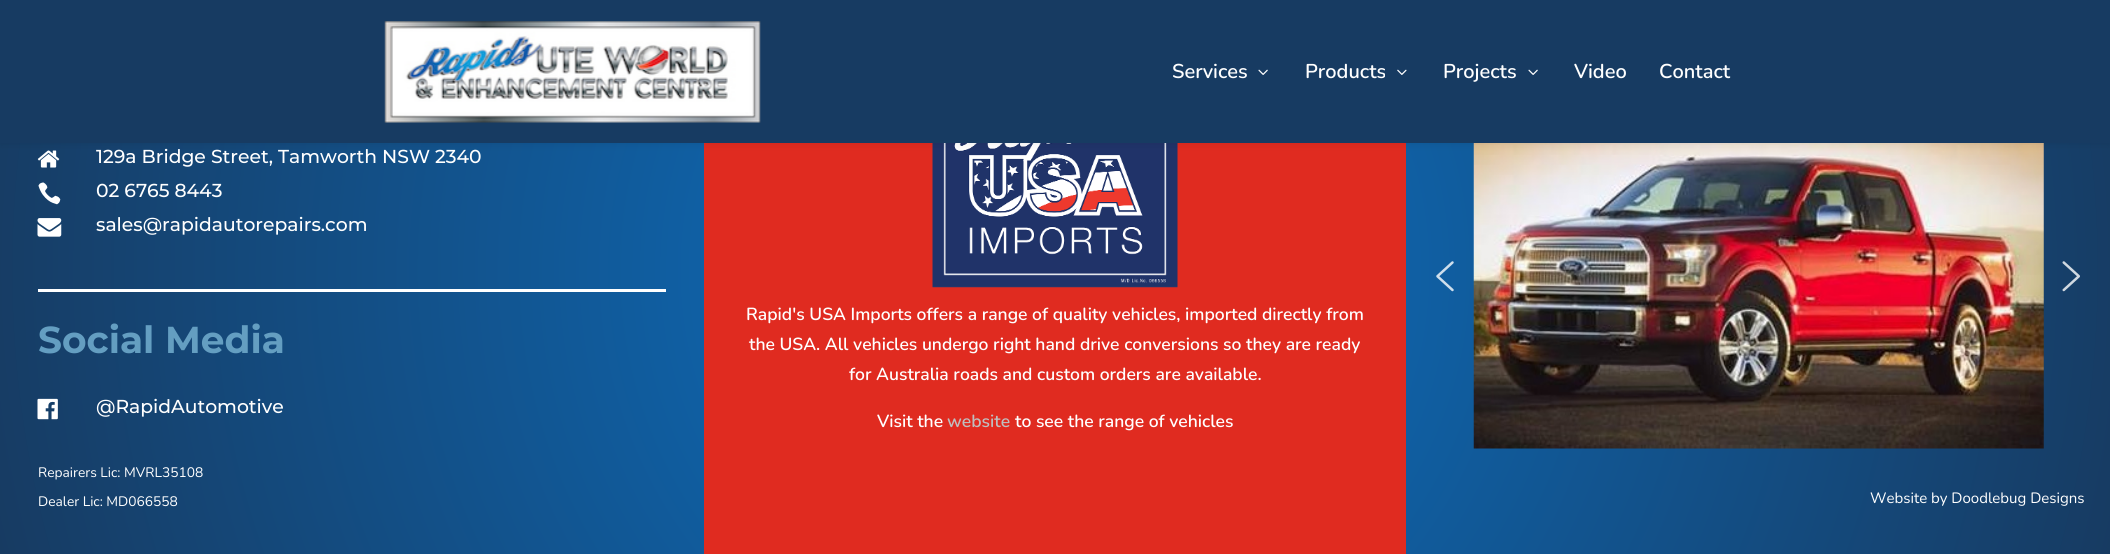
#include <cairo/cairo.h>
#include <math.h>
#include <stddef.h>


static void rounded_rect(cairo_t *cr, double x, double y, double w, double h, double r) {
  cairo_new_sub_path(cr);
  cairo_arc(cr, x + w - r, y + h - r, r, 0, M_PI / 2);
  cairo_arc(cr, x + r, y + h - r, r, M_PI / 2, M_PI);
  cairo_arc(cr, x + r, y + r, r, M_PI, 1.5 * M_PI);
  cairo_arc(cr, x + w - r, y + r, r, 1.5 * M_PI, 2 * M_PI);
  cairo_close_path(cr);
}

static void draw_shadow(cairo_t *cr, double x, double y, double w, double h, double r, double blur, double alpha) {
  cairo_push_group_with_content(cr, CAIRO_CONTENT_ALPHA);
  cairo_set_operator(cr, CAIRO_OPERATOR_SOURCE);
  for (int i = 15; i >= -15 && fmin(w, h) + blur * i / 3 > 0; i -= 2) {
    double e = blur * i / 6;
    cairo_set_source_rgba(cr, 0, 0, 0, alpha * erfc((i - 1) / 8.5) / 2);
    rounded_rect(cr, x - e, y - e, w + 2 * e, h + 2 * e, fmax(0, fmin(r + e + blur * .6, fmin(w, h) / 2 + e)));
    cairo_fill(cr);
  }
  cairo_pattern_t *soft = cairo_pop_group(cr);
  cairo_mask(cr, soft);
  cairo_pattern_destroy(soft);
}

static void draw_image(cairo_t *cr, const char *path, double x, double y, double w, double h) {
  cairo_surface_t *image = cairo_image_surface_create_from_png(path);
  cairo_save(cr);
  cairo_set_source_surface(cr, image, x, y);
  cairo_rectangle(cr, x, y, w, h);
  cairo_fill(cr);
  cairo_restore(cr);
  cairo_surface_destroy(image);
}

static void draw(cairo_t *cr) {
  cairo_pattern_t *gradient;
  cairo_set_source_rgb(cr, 1, 1, 1);
  cairo_paint(cr);
  gradient = cairo_pattern_create_radial(1055, 270, 0, 1055, 270, 1093);
  cairo_pattern_add_color_stop_rgba(gradient, 0, 12 / 255.0, 113 / 255.0, 195 / 255.0, 1);
  cairo_pattern_add_color_stop_rgba(gradient, 1, 23 / 255.0, 59 / 255.0, 98 / 255.0, 1);
  cairo_set_source(cr, gradient);
  cairo_pattern_destroy(gradient);
  cairo_rectangle(cr, 0, 143, 2110, 411);
  cairo_fill(cr);
  draw_image(cr, "images/4.png", 37, 150, 23, 18);
  cairo_set_source_rgb(cr, 224 / 255.0, 43 / 255.0, 32 / 255.0);
  cairo_rectangle(cr, 704, 143, 702, 411);
  cairo_fill(cr);
  draw_image(cr, "images/8.png", 932, 143, 246, 145);
  draw_image(cr, "images/10.png", 1473, 143, 571, 306);
  cairo_set_source_rgb(cr, 0, 0, 0);
  draw_shadow(cr, 0, 0, 2110, 143, 0, 4.5, 0.1);
  cairo_set_source_rgb(cr, 23 / 255.0, 59 / 255.0, 98 / 255.0);
  cairo_rectangle(cr, 0, 0, 2110, 143);
  cairo_fill(cr);
  draw_image(cr, "images/1.png", 384, 21, 377, 102);
  draw_image(cr, "images/2.png", 1258, 69, 10, 6);
  draw_image(cr, "images/3.png", 1397, 69, 10, 6);
  draw_image(cr, "images/2.png", 1528, 69, 10, 6);
  draw_image(cr, "images/5.png", 38, 182, 23, 23);
  draw_image(cr, "images/6.png", 37, 218, 25, 19);
  cairo_set_source_rgb(cr, 1, 1, 1);
  cairo_rectangle(cr, 38, 289, 628, 3);
  cairo_fill(cr);
  draw_image(cr, "images/7.png", 37, 398, 21, 22);
  draw_image(cr, "images/9.png", 1436, 261, 18, 31);
  draw_image(cr, "images/11.png", 2062, 261, 18, 31);
  cairo_select_font_face(cr, "Nunito SemiBold", CAIRO_FONT_SLANT_NORMAL, CAIRO_FONT_WEIGHT_NORMAL);
  cairo_set_font_size(cr, 20);
  cairo_move_to(cr, 1172, 78);
  cairo_show_text(cr, "Services");
  cairo_move_to(cr, 1305, 78);
  cairo_show_text(cr, "Products");
  cairo_move_to(cr, 1443, 78);
  cairo_show_text(cr, "Projects");
  cairo_move_to(cr, 1574, 78);
  cairo_show_text(cr, "Video");
  cairo_move_to(cr, 1659, 78);
  cairo_show_text(cr, "Contact");
  cairo_select_font_face(cr, "Montserrat Medium", CAIRO_FONT_SLANT_NORMAL, CAIRO_FONT_WEIGHT_NORMAL);
  cairo_set_font_size(cr, 18.75);
  cairo_move_to(cr, 96, 163);
  cairo_show_text(cr, "129a Bridge Street, Tamworth NSW 2340");
  cairo_move_to(cr, 96, 197);
  cairo_show_text(cr, "02 6765 8443");
  cairo_move_to(cr, 96, 231);
  cairo_show_text(cr, "sales@rapidautorepairs.com");
  cairo_select_font_face(cr, "Montserrat", CAIRO_FONT_SLANT_NORMAL, CAIRO_FONT_WEIGHT_BOLD);
  cairo_set_font_size(cr, 37.5);
  cairo_set_source_rgb(cr, 100 / 255.0, 158 / 255.0, 193 / 255.0);
  cairo_move_to(cr, 38, 353);
  cairo_show_text(cr, "Social Media");
  cairo_select_font_face(cr, "Montserrat Medium", CAIRO_FONT_SLANT_NORMAL, CAIRO_FONT_WEIGHT_NORMAL);
  cairo_set_font_size(cr, 18.75);
  cairo_set_source_rgb(cr, 1, 1, 1);
  cairo_move_to(cr, 96, 413);
  cairo_show_text(cr, "@RapidAutomotive");
  cairo_select_font_face(cr, "Nunito", CAIRO_FONT_SLANT_NORMAL, CAIRO_FONT_WEIGHT_NORMAL);
  cairo_set_font_size(cr, 13.75);
  cairo_move_to(cr, 38, 477);
  cairo_show_text(cr, "Repairers Lic: MVRL35108");
  cairo_move_to(cr, 38, 506);
  cairo_show_text(cr, "Dealer Lic: MD066558");
  cairo_select_font_face(cr, "Nunito SemiBold", CAIRO_FONT_SLANT_NORMAL, CAIRO_FONT_WEIGHT_NORMAL);
  cairo_set_font_size(cr, 17.5);
  cairo_move_to(cr, 746, 320);
  cairo_show_text(cr, "Rapid's USA Imports offers a range of quality vehicles, imported directly from");
  cairo_move_to(cr, 749, 350);
  cairo_show_text(cr, "the USA. All vehicles undergo right hand drive conversions so they are ready");
  cairo_move_to(cr, 849, 380);
  cairo_show_text(cr, "for Australia roads and custom orders are available.");
  cairo_move_to(cr, 877, 427);
  cairo_show_text(cr, "Visit the");
  cairo_set_source_rgb(cr, 191 / 255.0, 191 / 255.0, 191 / 255.0);
  cairo_move_to(cr, 947, 427);
  cairo_show_text(cr, "website");
  cairo_set_source_rgb(cr, 1, 1, 1);
  cairo_move_to(cr, 1015, 427);
  cairo_show_text(cr, "to see the range of vehicles");
  cairo_select_font_face(cr, "Nunito", CAIRO_FONT_SLANT_NORMAL, CAIRO_FONT_WEIGHT_NORMAL);
  cairo_set_font_size(cr, 15);
  cairo_move_to(cr, 1870, 503);
  cairo_show_text(cr, "Website by Doodlebug Designs");
}

int main(void) {
  cairo_surface_t *surface = cairo_image_surface_create(CAIRO_FORMAT_RGB24, 2110, 554);
  cairo_t *cr = cairo_create(surface);
  cairo_font_options_t *options = cairo_font_options_create();
  cairo_font_options_set_hint_metrics(options, CAIRO_HINT_METRICS_OFF);
  cairo_font_options_set_hint_style(options, CAIRO_HINT_STYLE_NONE);
  cairo_set_font_options(cr, options);
  cairo_set_miter_limit(cr, 4);
  draw(cr);
  cairo_surface_write_to_png(surface, "out.png");
  cairo_font_options_destroy(options);
  cairo_destroy(cr);
  cairo_surface_destroy(surface);
  return 0;
}
